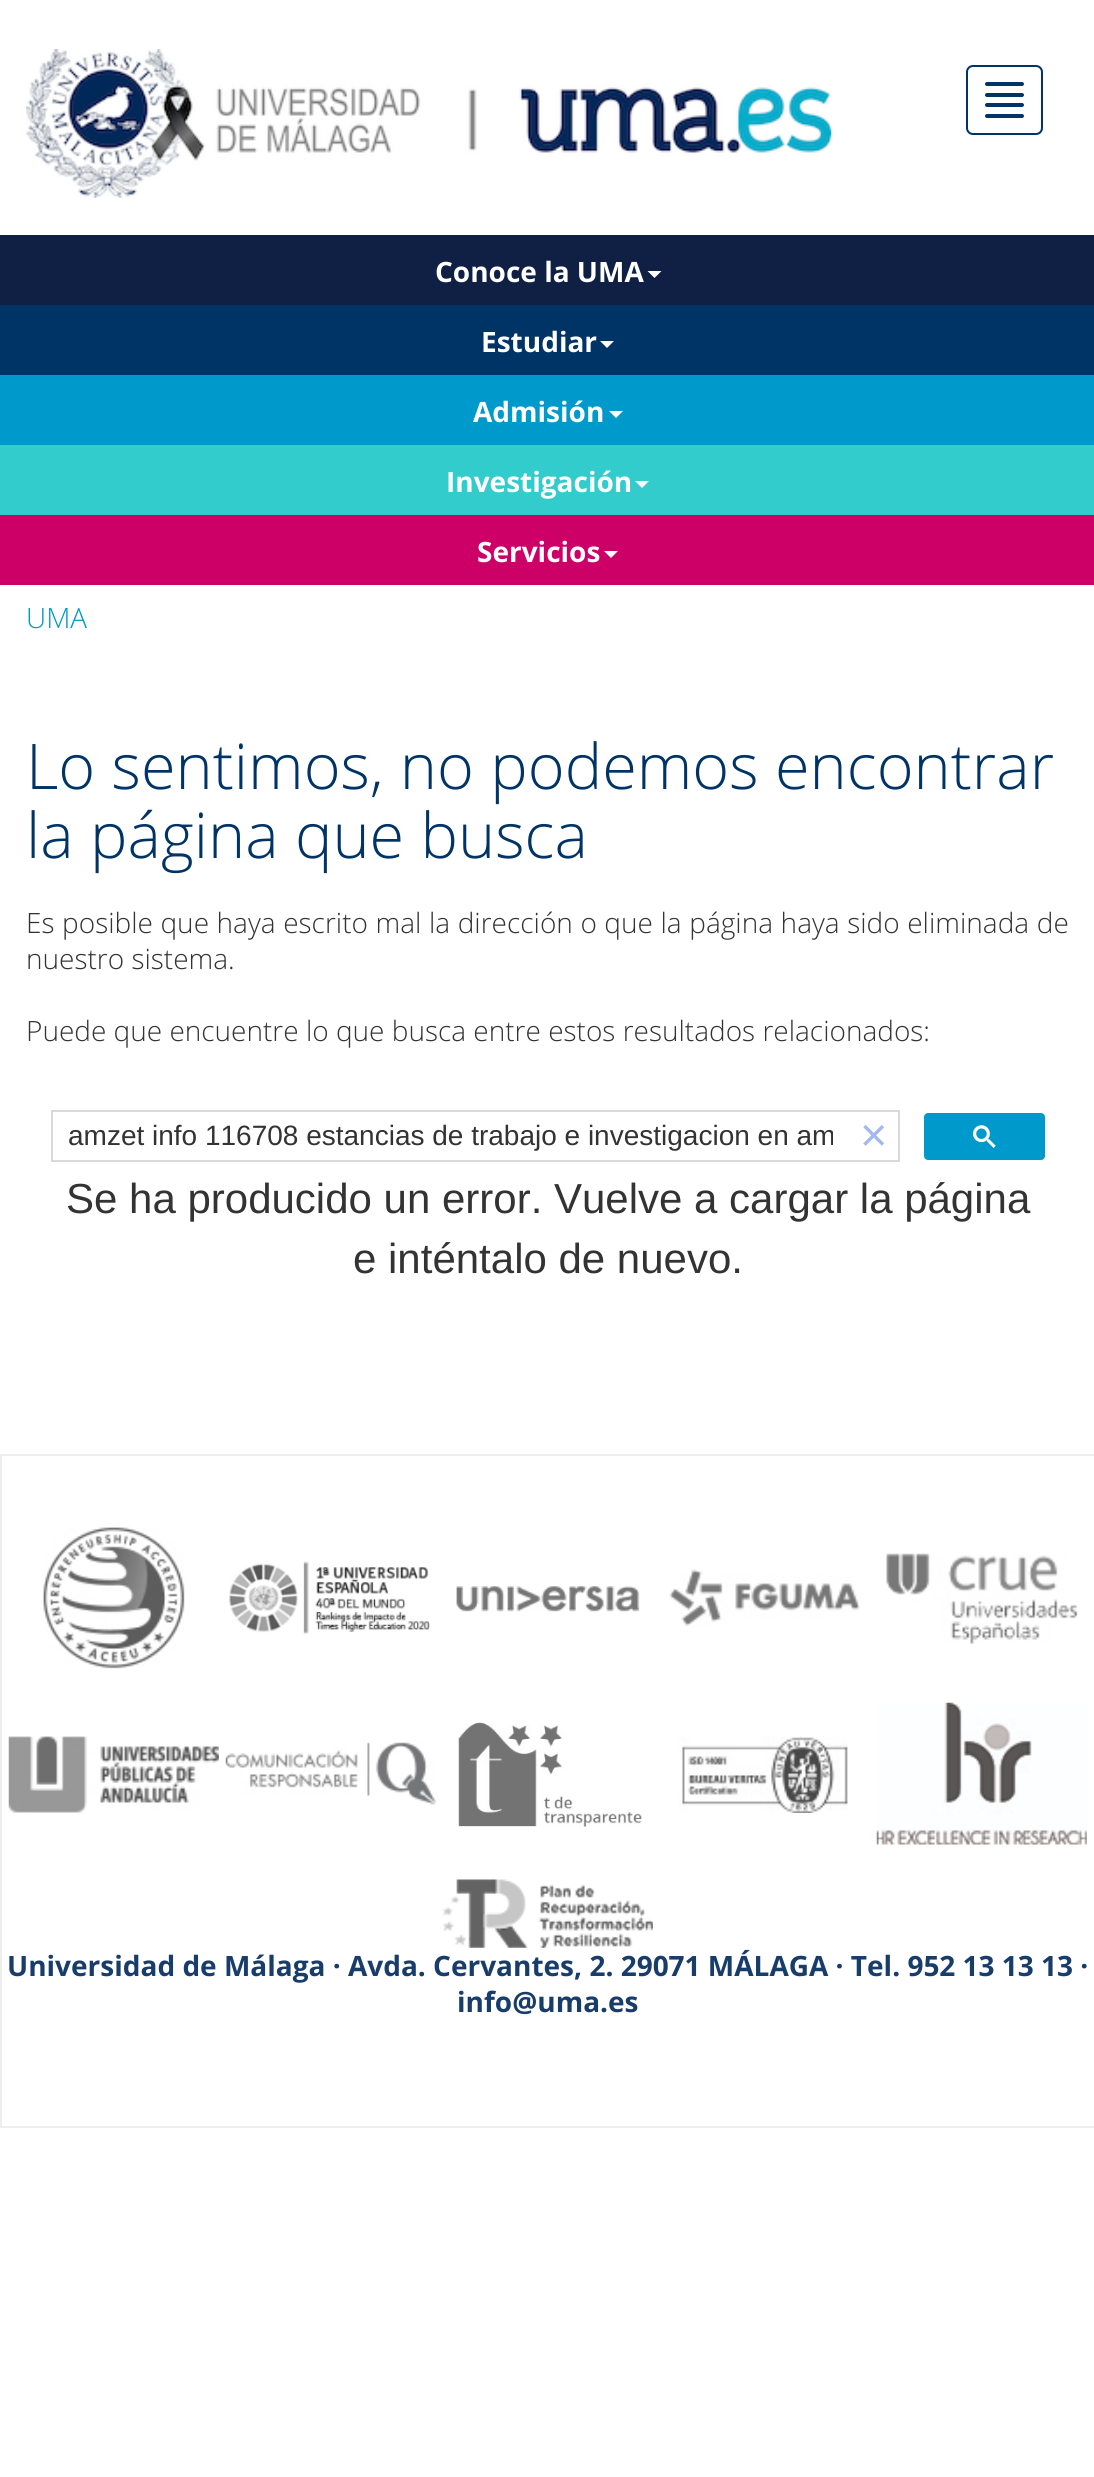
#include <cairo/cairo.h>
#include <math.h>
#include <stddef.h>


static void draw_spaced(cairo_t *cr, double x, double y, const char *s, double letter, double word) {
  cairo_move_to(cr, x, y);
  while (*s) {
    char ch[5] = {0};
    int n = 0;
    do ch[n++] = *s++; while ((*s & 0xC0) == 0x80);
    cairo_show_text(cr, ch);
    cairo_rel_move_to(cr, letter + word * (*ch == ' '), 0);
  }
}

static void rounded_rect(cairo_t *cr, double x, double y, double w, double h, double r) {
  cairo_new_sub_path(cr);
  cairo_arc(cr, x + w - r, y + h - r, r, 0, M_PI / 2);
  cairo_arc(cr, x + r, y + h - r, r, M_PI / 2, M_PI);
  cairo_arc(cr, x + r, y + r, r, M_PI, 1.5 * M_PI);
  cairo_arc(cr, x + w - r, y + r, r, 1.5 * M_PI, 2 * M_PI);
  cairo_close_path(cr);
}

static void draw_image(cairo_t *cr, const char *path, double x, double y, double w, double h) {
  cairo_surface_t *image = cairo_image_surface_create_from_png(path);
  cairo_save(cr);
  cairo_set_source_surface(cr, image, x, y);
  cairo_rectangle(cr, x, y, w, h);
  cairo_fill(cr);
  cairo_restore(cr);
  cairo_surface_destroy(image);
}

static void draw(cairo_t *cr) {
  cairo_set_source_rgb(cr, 1, 1, 1);
  cairo_paint(cr);
  draw_image(cr, "images/1.png", 26, 49, 806, 149);
  rounded_rect(cr, 967, 66, 75, 68, 6);
  cairo_set_source_rgb(cr, 0, 51 / 255.0, 102 / 255.0);
  cairo_stroke(cr);
  rounded_rect(cr, 985, 82, 39, 4, 2);
  cairo_fill(cr);
  rounded_rect(cr, 985, 93, 39, 4, 2);
  cairo_fill(cr);
  rounded_rect(cr, 985, 103, 39, 4, 2);
  cairo_fill(cr);
  rounded_rect(cr, 985, 114, 39, 4, 2);
  cairo_fill(cr);
  cairo_set_source_rgb(cr, 16 / 255.0, 31 / 255.0, 68 / 255.0);
  cairo_rectangle(cr, 0, 235, 1094, 70);
  cairo_fill(cr);
  cairo_set_source_rgb(cr, 1, 1, 1);
  cairo_new_path(cr);
  cairo_move_to(cr, 647.5, 271);
  cairo_line_to(cr, 661.5, 271);
  cairo_line_to(cr, 654.5, 278);
  cairo_close_path(cr);
  cairo_fill(cr);
  cairo_set_source_rgb(cr, 0, 51 / 255.0, 102 / 255.0);
  cairo_rectangle(cr, 0, 305, 1094, 70);
  cairo_fill(cr);
  cairo_set_source_rgb(cr, 1, 1, 1);
  cairo_new_path(cr);
  cairo_move_to(cr, 600, 341);
  cairo_line_to(cr, 614, 341);
  cairo_line_to(cr, 607, 348);
  cairo_close_path(cr);
  cairo_fill(cr);
  cairo_set_source_rgb(cr, 0, 153 / 255.0, 204 / 255.0);
  cairo_rectangle(cr, 0, 375, 1094, 70);
  cairo_fill(cr);
  cairo_set_source_rgb(cr, 1, 1, 1);
  cairo_new_path(cr);
  cairo_move_to(cr, 609, 411);
  cairo_line_to(cr, 623, 411);
  cairo_line_to(cr, 616, 418);
  cairo_close_path(cr);
  cairo_fill(cr);
  cairo_set_source_rgb(cr, 51 / 255.0, 204 / 255.0, 204 / 255.0);
  cairo_rectangle(cr, 0, 445, 1094, 70);
  cairo_fill(cr);
  cairo_set_source_rgb(cr, 1, 1, 1);
  cairo_new_path(cr);
  cairo_move_to(cr, 635, 481);
  cairo_line_to(cr, 649, 481);
  cairo_line_to(cr, 642, 488);
  cairo_close_path(cr);
  cairo_fill(cr);
  cairo_set_source_rgb(cr, 204 / 255.0, 0, 102 / 255.0);
  cairo_rectangle(cr, 0, 515, 1094, 70);
  cairo_fill(cr);
  cairo_set_source_rgb(cr, 1, 1, 1);
  cairo_new_path(cr);
  cairo_move_to(cr, 604, 551);
  cairo_line_to(cr, 618, 551);
  cairo_line_to(cr, 611, 558);
  cairo_close_path(cr);
  cairo_fill(cr);
  cairo_rectangle(cr, 52, 1111, 847, 50);
  cairo_set_source_rgb(cr, 217 / 255.0, 217 / 255.0, 217 / 255.0);
  cairo_stroke(cr);
  cairo_set_source_rgb(cr, 0, 153 / 255.0, 204 / 255.0);
  rounded_rect(cr, 925, 1114, 119, 45, 3);
  cairo_fill_preserve(cr);
  cairo_stroke(cr);
  draw_image(cr, "images/2.png", 973, 1125, 23, 23);
  cairo_rectangle(cr, 1, 1455, 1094, 672);
  cairo_set_source_rgb(cr, 238 / 255.0, 238 / 255.0, 238 / 255.0);
  cairo_stroke(cr);
  draw_image(cr, "images/3.png", 43, 1527, 142, 142);
  draw_image(cr, "images/4.png", 229, 1561, 201, 73);
  draw_image(cr, "images/5.png", 456, 1586, 184, 26);
  draw_image(cr, "images/6.png", 669, 1569, 191, 58);
  draw_image(cr, "images/7.png", 886, 1553, 192, 91);
  draw_image(cr, "images/8.png", 8, 1736, 211, 77);
  draw_image(cr, "images/9.png", 225, 1742, 211, 63);
  draw_image(cr, "images/10.png", 458, 1722, 185, 105);
  draw_image(cr, "images/11.png", 679, 1736, 169, 77);
  draw_image(cr, "images/12.png", 876, 1702, 211, 143);
  draw_image(cr, "images/13.png", 443, 1879, 210, 69);
  cairo_select_font_face(cr, "Open Sans", CAIRO_FONT_SLANT_NORMAL, CAIRO_FONT_WEIGHT_BOLD);
  cairo_set_font_size(cr, 28);
  cairo_set_source_rgb(cr, 1, 1, 1);
  cairo_move_to(cr, 435, 282);
  cairo_show_text(cr, "Conoce la UMA");
  cairo_move_to(cr, 481, 352);
  cairo_show_text(cr, "Estudiar");
  cairo_move_to(cr, 473, 422);
  cairo_show_text(cr, "Admisión");
  cairo_move_to(cr, 446, 492);
  cairo_show_text(cr, "Investigación");
  cairo_move_to(cr, 477, 562);
  cairo_show_text(cr, "Servicios");
  cairo_select_font_face(cr, "Open Sans Light", CAIRO_FONT_SLANT_NORMAL, CAIRO_FONT_WEIGHT_NORMAL);
  cairo_set_source_rgb(cr, 0, 153 / 255.0, 204 / 255.0);
  cairo_move_to(cr, 26, 628);
  cairo_show_text(cr, "UMA");
  cairo_set_font_size(cr, 63);
  cairo_set_source_rgb(cr, 0, 51 / 255.0, 102 / 255.0);
  cairo_move_to(cr, 26, 789);
  cairo_show_text(cr, "Lo sentimos, no podemos encontrar");
  cairo_move_to(cr, 26, 858);
  cairo_show_text(cr, "la página que busca");
  cairo_set_font_size(cr, 28);
  cairo_set_source_rgb(cr, 51 / 255.0, 51 / 255.0, 51 / 255.0);
  draw_spaced(cr, 26, 933, "Es posible que haya escrito mal la dirección o que la página haya sido eliminada de", 0, 0.3);
  cairo_move_to(cr, 26, 969);
  cairo_show_text(cr, "nuestro sistema.");
  cairo_move_to(cr, 26, 1041);
  cairo_show_text(cr, "Puede que encuentre lo que busca entre estos resultados relacionados:");
  cairo_save(cr);
  cairo_rectangle(cr, 68, 1120, 765, 32);
  cairo_clip(cr);
  cairo_select_font_face(cr, "Liberation Sans", CAIRO_FONT_SLANT_NORMAL, CAIRO_FONT_WEIGHT_NORMAL);
  cairo_move_to(cr, 68, 1145);
  cairo_show_text(cr, "amzet info 116708 estancias de trabajo e investigacion en am");
  cairo_restore(cr);
  cairo_select_font_face(cr, "Liberation Sans", CAIRO_FONT_SLANT_NORMAL, CAIRO_FONT_WEIGHT_NORMAL);
  cairo_set_font_size(cr, 47);
  cairo_set_source_rgb(cr, 161 / 255.0, 185 / 255.0, 237 / 255.0);
  cairo_move_to(cr, 860, 1151);
  cairo_show_text(cr, "×");
  cairo_set_font_size(cr, 42);
  cairo_set_source_rgb(cr, 51 / 255.0, 51 / 255.0, 51 / 255.0);
  cairo_move_to(cr, 66, 1213);
  cairo_show_text(cr, "Se ha producido un error. Vuelve a cargar la página");
  cairo_move_to(cr, 353, 1273);
  cairo_show_text(cr, "e inténtalo de nuevo.");
  cairo_select_font_face(cr, "Open Sans", CAIRO_FONT_SLANT_NORMAL, CAIRO_FONT_WEIGHT_BOLD);
  cairo_set_font_size(cr, 28);
  cairo_set_source_rgb(cr, 24 / 255.0, 61 / 255.0, 106 / 255.0);
  cairo_move_to(cr, 7, 1976);
  cairo_show_text(cr, "Universidad de Málaga · Avda. Cervantes, 2. 29071 MÁLAGA · Tel. 952 13 13 13 ·");
  cairo_move_to(cr, 457, 2012);
  cairo_show_text(cr, "info@uma.es");
}

int main(void) {
  cairo_surface_t *surface = cairo_image_surface_create(CAIRO_FORMAT_RGB24, 1094, 2477);
  cairo_t *cr = cairo_create(surface);
  cairo_font_options_t *options = cairo_font_options_create();
  cairo_font_options_set_hint_metrics(options, CAIRO_HINT_METRICS_OFF);
  cairo_font_options_set_hint_style(options, CAIRO_HINT_STYLE_NONE);
  cairo_set_font_options(cr, options);
  cairo_set_miter_limit(cr, 4);
  draw(cr);
  cairo_surface_write_to_png(surface, "out.png");
  cairo_font_options_destroy(options);
  cairo_destroy(cr);
  cairo_surface_destroy(surface);
  return 0;
}
